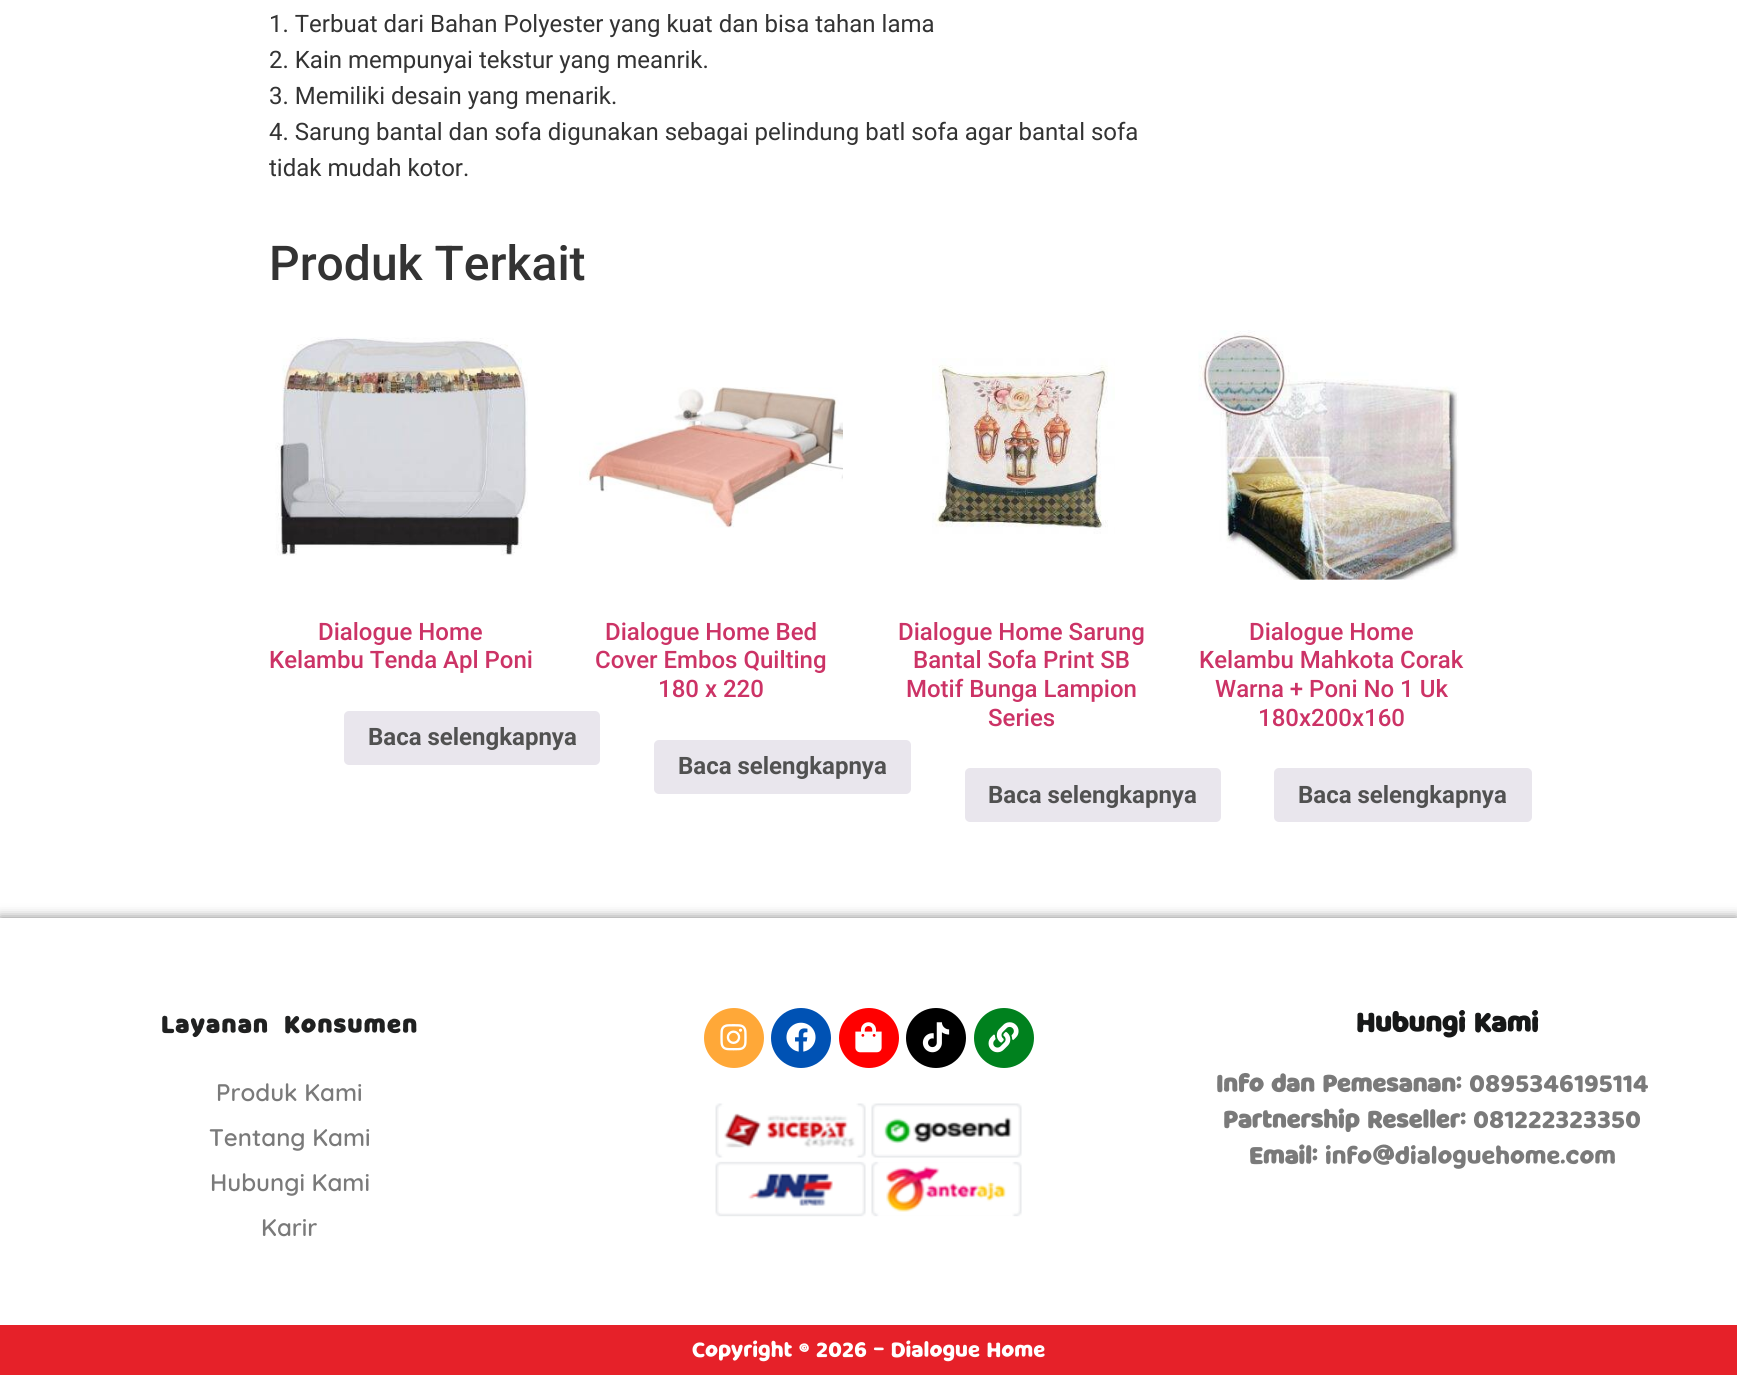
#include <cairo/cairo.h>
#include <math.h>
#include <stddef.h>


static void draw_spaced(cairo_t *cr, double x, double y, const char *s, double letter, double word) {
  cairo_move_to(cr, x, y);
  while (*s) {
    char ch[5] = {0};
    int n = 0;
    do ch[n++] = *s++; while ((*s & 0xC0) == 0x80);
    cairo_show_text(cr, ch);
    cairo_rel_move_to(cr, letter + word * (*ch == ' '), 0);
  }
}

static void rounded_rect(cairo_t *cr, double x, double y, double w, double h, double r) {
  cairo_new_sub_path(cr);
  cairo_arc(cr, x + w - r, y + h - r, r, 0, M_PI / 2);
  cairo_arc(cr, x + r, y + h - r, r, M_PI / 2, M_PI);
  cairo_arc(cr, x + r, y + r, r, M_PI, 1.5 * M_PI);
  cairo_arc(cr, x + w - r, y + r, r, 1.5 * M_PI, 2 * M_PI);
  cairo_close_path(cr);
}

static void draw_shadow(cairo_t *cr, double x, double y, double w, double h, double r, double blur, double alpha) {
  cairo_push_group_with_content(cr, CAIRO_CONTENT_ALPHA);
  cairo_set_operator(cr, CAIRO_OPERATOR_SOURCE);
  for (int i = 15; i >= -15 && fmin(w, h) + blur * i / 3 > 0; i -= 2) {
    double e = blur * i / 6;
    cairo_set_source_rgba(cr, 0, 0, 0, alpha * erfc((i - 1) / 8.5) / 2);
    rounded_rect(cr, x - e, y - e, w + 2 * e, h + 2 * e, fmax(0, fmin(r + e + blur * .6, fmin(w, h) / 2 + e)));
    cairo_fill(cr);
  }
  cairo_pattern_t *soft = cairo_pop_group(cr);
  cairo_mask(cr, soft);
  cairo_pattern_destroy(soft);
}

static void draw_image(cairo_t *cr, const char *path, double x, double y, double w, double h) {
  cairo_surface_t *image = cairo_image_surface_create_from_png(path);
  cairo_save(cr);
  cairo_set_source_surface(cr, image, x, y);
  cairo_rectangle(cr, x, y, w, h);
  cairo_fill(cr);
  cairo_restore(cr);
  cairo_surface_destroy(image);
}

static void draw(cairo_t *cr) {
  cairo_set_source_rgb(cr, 1, 1, 1);
  cairo_paint(cr);
  draw_image(cr, "images/1.png", 275, 337, 253, 219);
  cairo_set_source_rgb(cr, 233 / 255.0, 230 / 255.0, 237 / 255.0);
  rounded_rect(cr, 344, 711, 256, 54, 5);
  cairo_fill(cr);
  draw_image(cr, "images/2.png", 579, 387, 264, 141);
  rounded_rect(cr, 654, 740, 257, 54, 5);
  cairo_fill(cr);
  draw_image(cr, "images/3.png", 932, 358, 183, 176);
  rounded_rect(cr, 965, 768, 256, 54, 5);
  cairo_fill(cr);
  draw_image(cr, "images/4.png", 1198, 330, 261, 250);
  rounded_rect(cr, 1274, 768, 258, 54, 5);
  cairo_fill(cr);
  cairo_save(cr);
  cairo_set_fill_rule(cr, CAIRO_FILL_RULE_EVEN_ODD);
  cairo_new_path(cr);
  cairo_move_to(cr, 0, 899);
  cairo_line_to(cr, 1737, 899);
  cairo_line_to(cr, 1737, 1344);
  cairo_line_to(cr, 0, 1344);
  cairo_close_path(cr);
  cairo_move_to(cr, 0, 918);
  cairo_line_to(cr, 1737, 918);
  cairo_line_to(cr, 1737, 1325);
  cairo_line_to(cr, 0, 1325);
  cairo_close_path(cr);
  cairo_clip(cr);
  cairo_set_source_rgb(cr, 0, 0, 0);
  draw_shadow(cr, 0, 918, 1737, 407, 0, 6, 0.5);
  cairo_restore(cr);
  cairo_set_source_rgb(cr, 1, 168 / 255.0, 56 / 255.0);
  cairo_arc(cr, 734, 1038, 30, 0, 2 * M_PI);
  cairo_fill(cr);
  draw_image(cr, "images/5.png", 720, 1024, 27, 27);
  cairo_set_source_rgb(cr, 0, 82 / 255.0, 180 / 255.0);
  cairo_arc(cr, 801, 1038, 30, 0, 2 * M_PI);
  cairo_fill(cr);
  draw_image(cr, "images/6.png", 786, 1022, 30, 30);
  cairo_set_source_rgb(cr, 1, 0, 0);
  cairo_arc(cr, 869, 1038, 30, 0, 2 * M_PI);
  cairo_fill(cr);
  draw_image(cr, "images/7.png", 855, 1022, 27, 31);
  cairo_set_source_rgb(cr, 0, 0, 0);
  cairo_arc(cr, 936, 1038, 30, 0, 2 * M_PI);
  cairo_fill(cr);
  draw_image(cr, "images/8.png", 922, 1022, 28, 31);
  cairo_set_source_rgb(cr, 0, 129 / 255.0, 30 / 255.0);
  cairo_arc(cr, 1004, 1038, 30, 0, 2 * M_PI);
  cairo_fill(cr);
  draw_image(cr, "images/9.png", 988, 1022, 31, 31);
  draw_image(cr, "images/10.png", 715, 1103, 307, 114);
  cairo_set_source_rgb(cr, 230 / 255.0, 33 / 255.0, 41 / 255.0);
  cairo_rectangle(cr, 0, 1325, 1737, 50);
  cairo_fill(cr);
  cairo_select_font_face(cr, "Roboto", CAIRO_FONT_SLANT_NORMAL, CAIRO_FONT_WEIGHT_NORMAL);
  cairo_set_font_size(cr, 24);
  cairo_set_source_rgb(cr, 51 / 255.0, 51 / 255.0, 51 / 255.0);
  cairo_move_to(cr, 269, 32);
  cairo_show_text(cr, "1. Terbuat dari Bahan Polyester yang kuat dan bisa tahan lama");
  cairo_move_to(cr, 269, 68);
  cairo_show_text(cr, "2. Kain mempunyai tekstur yang meanrik.");
  cairo_move_to(cr, 269, 104);
  cairo_show_text(cr, "3. Memiliki desain yang menarik.");
  cairo_move_to(cr, 269, 140);
  cairo_show_text(cr, "4. Sarung bantal dan sofa digunakan sebagai pelindung batl sofa agar bantal sofa");
  cairo_move_to(cr, 269, 176);
  cairo_show_text(cr, "tidak mudah kotor.");
  cairo_select_font_face(cr, "Roboto Medium", CAIRO_FONT_SLANT_NORMAL, CAIRO_FONT_WEIGHT_NORMAL);
  cairo_set_font_size(cr, 48);
  cairo_move_to(cr, 269, 280);
  cairo_show_text(cr, "Produk Terkait");
  cairo_set_font_size(cr, 24);
  cairo_set_source_rgb(cr, 204 / 255.0, 51 / 255.0, 102 / 255.0);
  cairo_move_to(cr, 318, 640);
  cairo_show_text(cr, "Dialogue Home");
  cairo_move_to(cr, 269, 668);
  cairo_show_text(cr, "Kelambu Tenda Apl Poni");
  cairo_select_font_face(cr, "Roboto", CAIRO_FONT_SLANT_NORMAL, CAIRO_FONT_WEIGHT_BOLD);
  cairo_set_source_rgb(cr, 81 / 255.0, 81 / 255.0, 81 / 255.0);
  cairo_move_to(cr, 368, 745);
  cairo_show_text(cr, "Baca selengkapnya");
  cairo_select_font_face(cr, "Roboto Medium", CAIRO_FONT_SLANT_NORMAL, CAIRO_FONT_WEIGHT_NORMAL);
  cairo_set_source_rgb(cr, 204 / 255.0, 51 / 255.0, 102 / 255.0);
  cairo_move_to(cr, 605, 640);
  cairo_show_text(cr, "Dialogue Home Bed");
  cairo_move_to(cr, 595, 668);
  cairo_show_text(cr, "Cover Embos Quilting");
  cairo_move_to(cr, 658, 697);
  cairo_show_text(cr, "180 x 220");
  cairo_select_font_face(cr, "Roboto", CAIRO_FONT_SLANT_NORMAL, CAIRO_FONT_WEIGHT_BOLD);
  cairo_set_source_rgb(cr, 81 / 255.0, 81 / 255.0, 81 / 255.0);
  cairo_move_to(cr, 678, 774);
  cairo_show_text(cr, "Baca selengkapnya");
  cairo_select_font_face(cr, "Roboto Medium", CAIRO_FONT_SLANT_NORMAL, CAIRO_FONT_WEIGHT_NORMAL);
  cairo_set_source_rgb(cr, 204 / 255.0, 51 / 255.0, 102 / 255.0);
  cairo_move_to(cr, 898, 640);
  cairo_show_text(cr, "Dialogue Home Sarung");
  cairo_move_to(cr, 913, 668);
  cairo_show_text(cr, "Bantal Sofa Print SB");
  cairo_move_to(cr, 906, 697);
  cairo_show_text(cr, "Motif Bunga Lampion");
  cairo_move_to(cr, 988, 726);
  cairo_show_text(cr, "Series");
  cairo_select_font_face(cr, "Roboto", CAIRO_FONT_SLANT_NORMAL, CAIRO_FONT_WEIGHT_BOLD);
  cairo_set_source_rgb(cr, 81 / 255.0, 81 / 255.0, 81 / 255.0);
  cairo_move_to(cr, 988, 803);
  cairo_show_text(cr, "Baca selengkapnya");
  cairo_select_font_face(cr, "Roboto Medium", CAIRO_FONT_SLANT_NORMAL, CAIRO_FONT_WEIGHT_NORMAL);
  cairo_set_source_rgb(cr, 204 / 255.0, 51 / 255.0, 102 / 255.0);
  cairo_move_to(cr, 1249, 640);
  cairo_show_text(cr, "Dialogue Home");
  cairo_move_to(cr, 1199, 668);
  cairo_show_text(cr, "Kelambu Mahkota Corak");
  cairo_move_to(cr, 1215, 697);
  cairo_show_text(cr, "Warna + Poni No 1 Uk");
  cairo_move_to(cr, 1258, 726);
  cairo_show_text(cr, "180x200x160");
  cairo_select_font_face(cr, "Roboto", CAIRO_FONT_SLANT_NORMAL, CAIRO_FONT_WEIGHT_BOLD);
  cairo_set_source_rgb(cr, 81 / 255.0, 81 / 255.0, 81 / 255.0);
  cairo_move_to(cr, 1298, 803);
  cairo_show_text(cr, "Baca selengkapnya");
  cairo_select_font_face(cr, "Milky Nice", CAIRO_FONT_SLANT_NORMAL, CAIRO_FONT_WEIGHT_BOLD);
  cairo_set_source_rgb(cr, 32 / 255.0, 33 / 255.0, 33 / 255.0);
  draw_spaced(cr, 161, 1033, "Layanan Konsumen", 1.5, 6);
  cairo_select_font_face(cr, "Quicksand SemiBold", CAIRO_FONT_SLANT_NORMAL, CAIRO_FONT_WEIGHT_NORMAL);
  cairo_set_source_rgb(cr, 122 / 255.0, 122 / 255.0, 122 / 255.0);
  cairo_move_to(cr, 216, 1101);
  cairo_show_text(cr, "Produk Kami");
  cairo_move_to(cr, 209, 1146);
  cairo_show_text(cr, "Tentang Kami");
  cairo_move_to(cr, 210, 1191);
  cairo_show_text(cr, "Hubungi Kami");
  cairo_move_to(cr, 261, 1236);
  cairo_show_text(cr, "Karir");
  cairo_select_font_face(cr, "Milky Nice", CAIRO_FONT_SLANT_NORMAL, CAIRO_FONT_WEIGHT_BOLD);
  cairo_set_font_size(cr, 27);
  cairo_set_source_rgb(cr, 23 / 255.0, 24 / 255.0, 24 / 255.0);
  cairo_move_to(cr, 1356, 1032);
  cairo_show_text(cr, "Hubungi Kami");
  cairo_set_font_size(cr, 24);
  cairo_set_source_rgb(cr, 122 / 255.0, 122 / 255.0, 122 / 255.0);
  cairo_move_to(cr, 1216, 1092);
  cairo_show_text(cr, "Info dan Pemesanan:");
  cairo_select_font_face(cr, "Milky Nice", CAIRO_FONT_SLANT_NORMAL, CAIRO_FONT_WEIGHT_NORMAL);
  cairo_move_to(cr, 1469, 1092);
  cairo_show_text(cr, "0895346195114");
  cairo_select_font_face(cr, "Milky Nice", CAIRO_FONT_SLANT_NORMAL, CAIRO_FONT_WEIGHT_BOLD);
  cairo_move_to(cr, 1223, 1128);
  cairo_show_text(cr, "Partnership Reseller:");
  cairo_select_font_face(cr, "Milky Nice", CAIRO_FONT_SLANT_NORMAL, CAIRO_FONT_WEIGHT_NORMAL);
  cairo_move_to(cr, 1473, 1128);
  cairo_show_text(cr, "081222323350");
  cairo_select_font_face(cr, "Milky Nice", CAIRO_FONT_SLANT_NORMAL, CAIRO_FONT_WEIGHT_BOLD);
  cairo_move_to(cr, 1249, 1164);
  cairo_show_text(cr, "Email:");
  cairo_select_font_face(cr, "Milky Nice", CAIRO_FONT_SLANT_NORMAL, CAIRO_FONT_WEIGHT_NORMAL);
  cairo_move_to(cr, 1325, 1164);
  cairo_show_text(cr, "info@dialoguehome.com");
  cairo_set_font_size(cr, 21);
  cairo_set_source_rgb(cr, 1, 1, 1);
  cairo_move_to(cr, 692, 1357);
  cairo_show_text(cr, "Copyright © 2026 - Dialogue Home");
}

int main(void) {
  cairo_surface_t *surface = cairo_image_surface_create(CAIRO_FORMAT_RGB24, 1737, 1375);
  cairo_t *cr = cairo_create(surface);
  cairo_font_options_t *options = cairo_font_options_create();
  cairo_font_options_set_hint_metrics(options, CAIRO_HINT_METRICS_OFF);
  cairo_font_options_set_hint_style(options, CAIRO_HINT_STYLE_NONE);
  cairo_set_font_options(cr, options);
  cairo_set_miter_limit(cr, 4);
  draw(cr);
  cairo_surface_write_to_png(surface, "out.png");
  cairo_font_options_destroy(options);
  cairo_destroy(cr);
  cairo_surface_destroy(surface);
  return 0;
}
